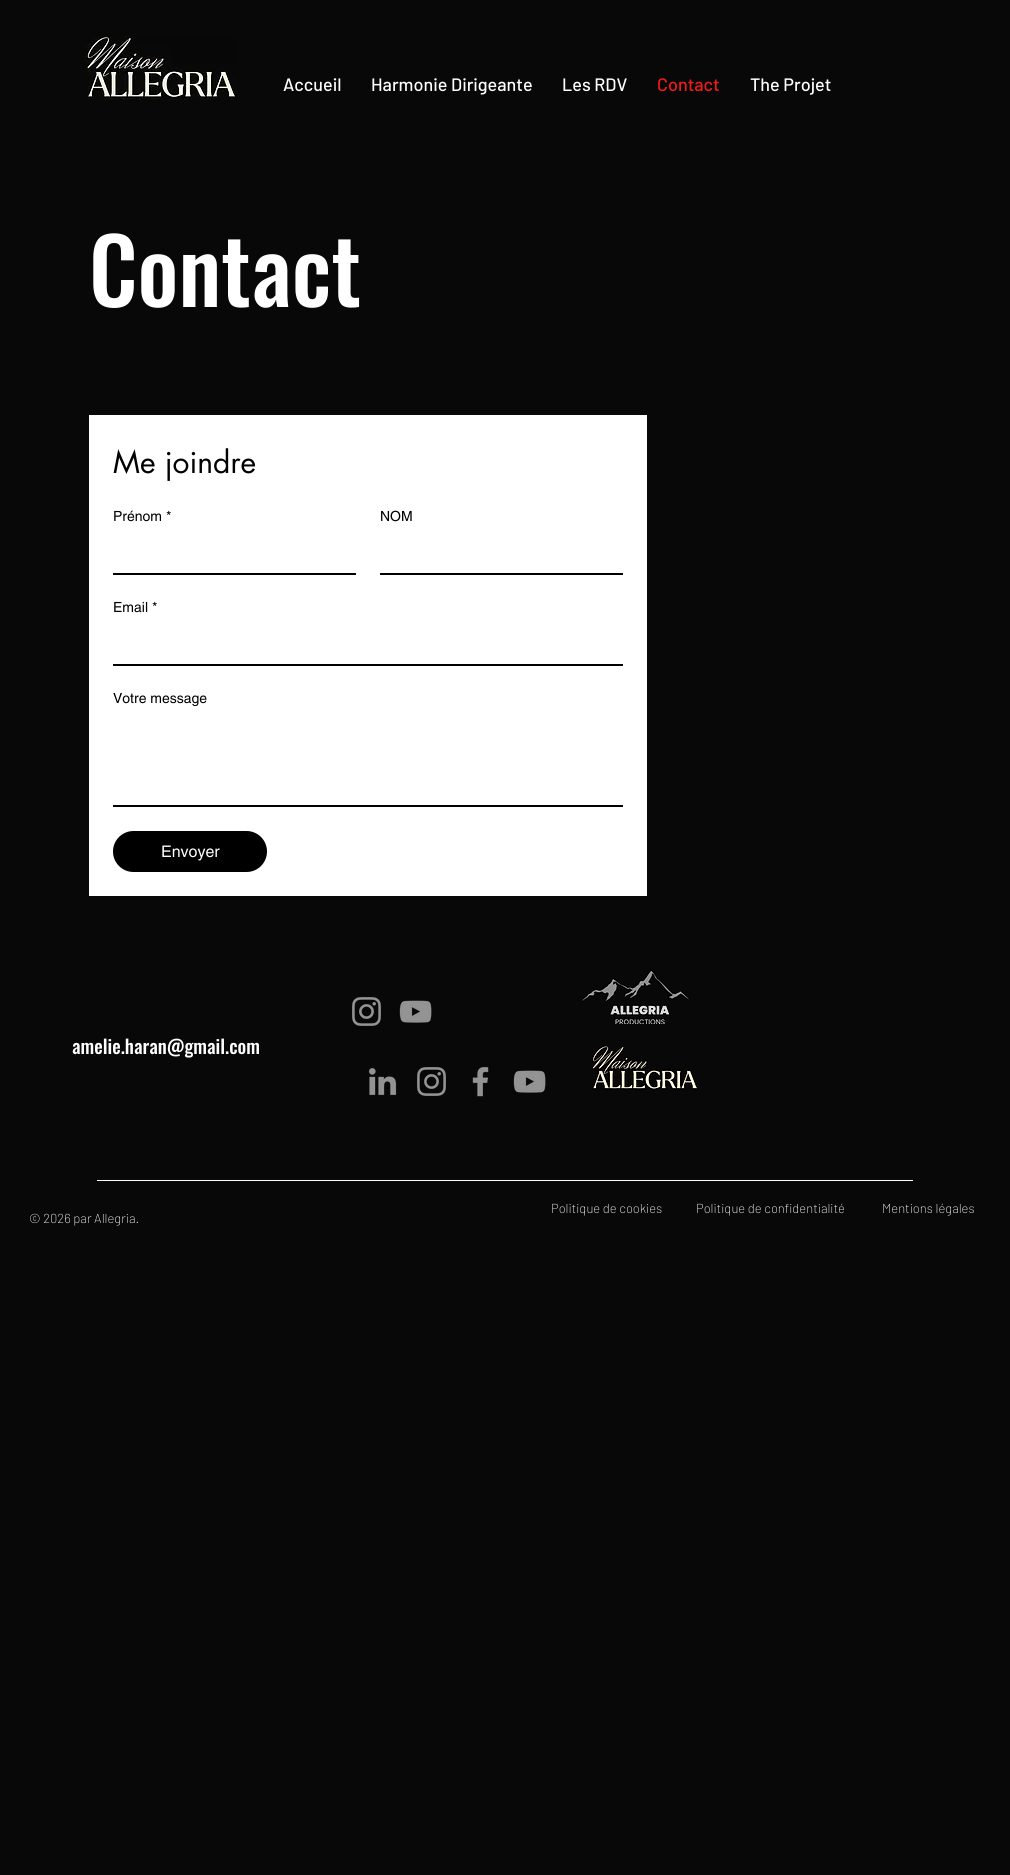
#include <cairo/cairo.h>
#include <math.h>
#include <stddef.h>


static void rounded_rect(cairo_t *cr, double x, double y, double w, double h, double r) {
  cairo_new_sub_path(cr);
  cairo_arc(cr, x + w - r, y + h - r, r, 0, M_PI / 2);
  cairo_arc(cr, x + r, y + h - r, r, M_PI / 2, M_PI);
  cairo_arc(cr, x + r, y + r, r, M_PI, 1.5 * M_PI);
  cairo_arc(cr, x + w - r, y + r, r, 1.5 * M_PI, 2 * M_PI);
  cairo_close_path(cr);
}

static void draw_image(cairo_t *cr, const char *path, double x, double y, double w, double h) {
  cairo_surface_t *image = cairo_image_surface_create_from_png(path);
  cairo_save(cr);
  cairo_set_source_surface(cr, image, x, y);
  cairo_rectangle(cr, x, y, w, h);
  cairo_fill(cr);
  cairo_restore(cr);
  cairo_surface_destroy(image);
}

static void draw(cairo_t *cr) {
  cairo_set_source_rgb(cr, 8 / 255.0, 8 / 255.0, 8 / 255.0);
  cairo_paint(cr);
  draw_image(cr, "images/1.png", 84, 36, 152, 64);
  cairo_set_source_rgb(cr, 1, 1, 1);
  cairo_rectangle(cr, 89, 415, 558, 481);
  cairo_fill(cr);
  cairo_set_source_rgb(cr, 0, 0, 0);
  cairo_rectangle(cr, 113, 573, 243, 2);
  cairo_fill(cr);
  cairo_rectangle(cr, 380, 573, 243, 2);
  cairo_fill(cr);
  cairo_rectangle(cr, 113, 664, 510, 2);
  cairo_fill(cr);
  cairo_rectangle(cr, 113, 805, 510, 2);
  cairo_fill(cr);
  rounded_rect(cr, 113, 831, 154, 41, 20.5);
  cairo_fill(cr);
  draw_image(cr, "images/2.png", 352, 997, 29, 29);
  draw_image(cr, "images/3.png", 399, 1000, 33, 23);
  draw_image(cr, "images/4.png", 581, 970, 109, 56);
  draw_image(cr, "images/5.png", 592, 1024, 106, 66);
  draw_image(cr, "images/6.png", 368, 1068, 29, 28);
  draw_image(cr, "images/2.png", 417, 1067, 29, 29);
  draw_image(cr, "images/7.png", 472, 1067, 17, 30);
  draw_image(cr, "images/3.png", 513, 1070, 33, 23);
  cairo_set_source_rgb(cr, 1, 1, 1);
  cairo_rectangle(cr, 97, 1180, 816, 1);
  cairo_fill(cr);
  cairo_select_font_face(cr, "Barlow Medium", CAIRO_FONT_SLANT_NORMAL, CAIRO_FONT_WEIGHT_NORMAL);
  cairo_set_font_size(cr, 18);
  cairo_move_to(cr, 283, 91);
  cairo_show_text(cr, "Accueil");
  cairo_move_to(cr, 371, 91);
  cairo_show_text(cr, "Harmonie Dirigeante");
  cairo_move_to(cr, 562, 91);
  cairo_show_text(cr, "Les RDV");
  cairo_set_source_rgb(cr, 243 / 255.0, 26 / 255.0, 26 / 255.0);
  cairo_move_to(cr, 657, 91);
  cairo_show_text(cr, "Contact");
  cairo_set_source_rgb(cr, 1, 1, 1);
  cairo_move_to(cr, 750, 91);
  cairo_show_text(cr, "The Projet");
  cairo_select_font_face(cr, "Oswald Medium", CAIRO_FONT_SLANT_NORMAL, CAIRO_FONT_WEIGHT_NORMAL);
  cairo_set_font_size(cr, 90);
  cairo_move_to(cr, 89, 307);
  cairo_show_text(cr, "Contact");
  cairo_select_font_face(cr, "futura", CAIRO_FONT_SLANT_NORMAL, CAIRO_FONT_WEIGHT_NORMAL);
  cairo_set_font_size(cr, 30);
  cairo_set_source_rgb(cr, 0, 0, 0);
  cairo_move_to(cr, 113, 473);
  cairo_show_text(cr, "Me joindre");
  cairo_select_font_face(cr, "helvetica", CAIRO_FONT_SLANT_NORMAL, CAIRO_FONT_WEIGHT_NORMAL);
  cairo_set_font_size(cr, 14);
  cairo_move_to(cr, 113, 521);
  cairo_show_text(cr, "Prénom *");
  cairo_move_to(cr, 380, 521);
  cairo_show_text(cr, "NOM");
  cairo_move_to(cr, 113, 612);
  cairo_show_text(cr, "Email *");
  cairo_move_to(cr, 113, 703);
  cairo_show_text(cr, "Votre message");
  cairo_set_font_size(cr, 16);
  cairo_set_source_rgb(cr, 1, 1, 1);
  cairo_move_to(cr, 161, 857);
  cairo_show_text(cr, "Envoyer");
  cairo_select_font_face(cr, "Oswald Medium", CAIRO_FONT_SLANT_NORMAL, CAIRO_FONT_WEIGHT_NORMAL);
  cairo_set_font_size(cr, 19);
  cairo_move_to(cr, 72, 1054);
  cairo_show_text(cr, "amelie.haran@gmail.com");
  cairo_select_font_face(cr, "Barlow ExtraLight", CAIRO_FONT_SLANT_NORMAL, CAIRO_FONT_WEIGHT_NORMAL);
  cairo_set_font_size(cr, 13);
  cairo_move_to(cr, 551, 1213);
  cairo_show_text(cr, "Politique de cookies");
  cairo_move_to(cr, 696, 1213);
  cairo_show_text(cr, "Politique de confidentialité");
  cairo_move_to(cr, 882, 1213);
  cairo_show_text(cr, "Mentions légales");
  cairo_move_to(cr, 29, 1223);
  cairo_show_text(cr, "© 2026 par Allegria.");
}

int main(void) {
  cairo_surface_t *surface = cairo_image_surface_create(CAIRO_FORMAT_RGB24, 1010, 1875);
  cairo_t *cr = cairo_create(surface);
  cairo_font_options_t *options = cairo_font_options_create();
  cairo_font_options_set_hint_metrics(options, CAIRO_HINT_METRICS_OFF);
  cairo_font_options_set_hint_style(options, CAIRO_HINT_STYLE_NONE);
  cairo_set_font_options(cr, options);
  cairo_set_miter_limit(cr, 4);
  draw(cr);
  cairo_surface_write_to_png(surface, "out.png");
  cairo_font_options_destroy(options);
  cairo_destroy(cr);
  cairo_surface_destroy(surface);
  return 0;
}
